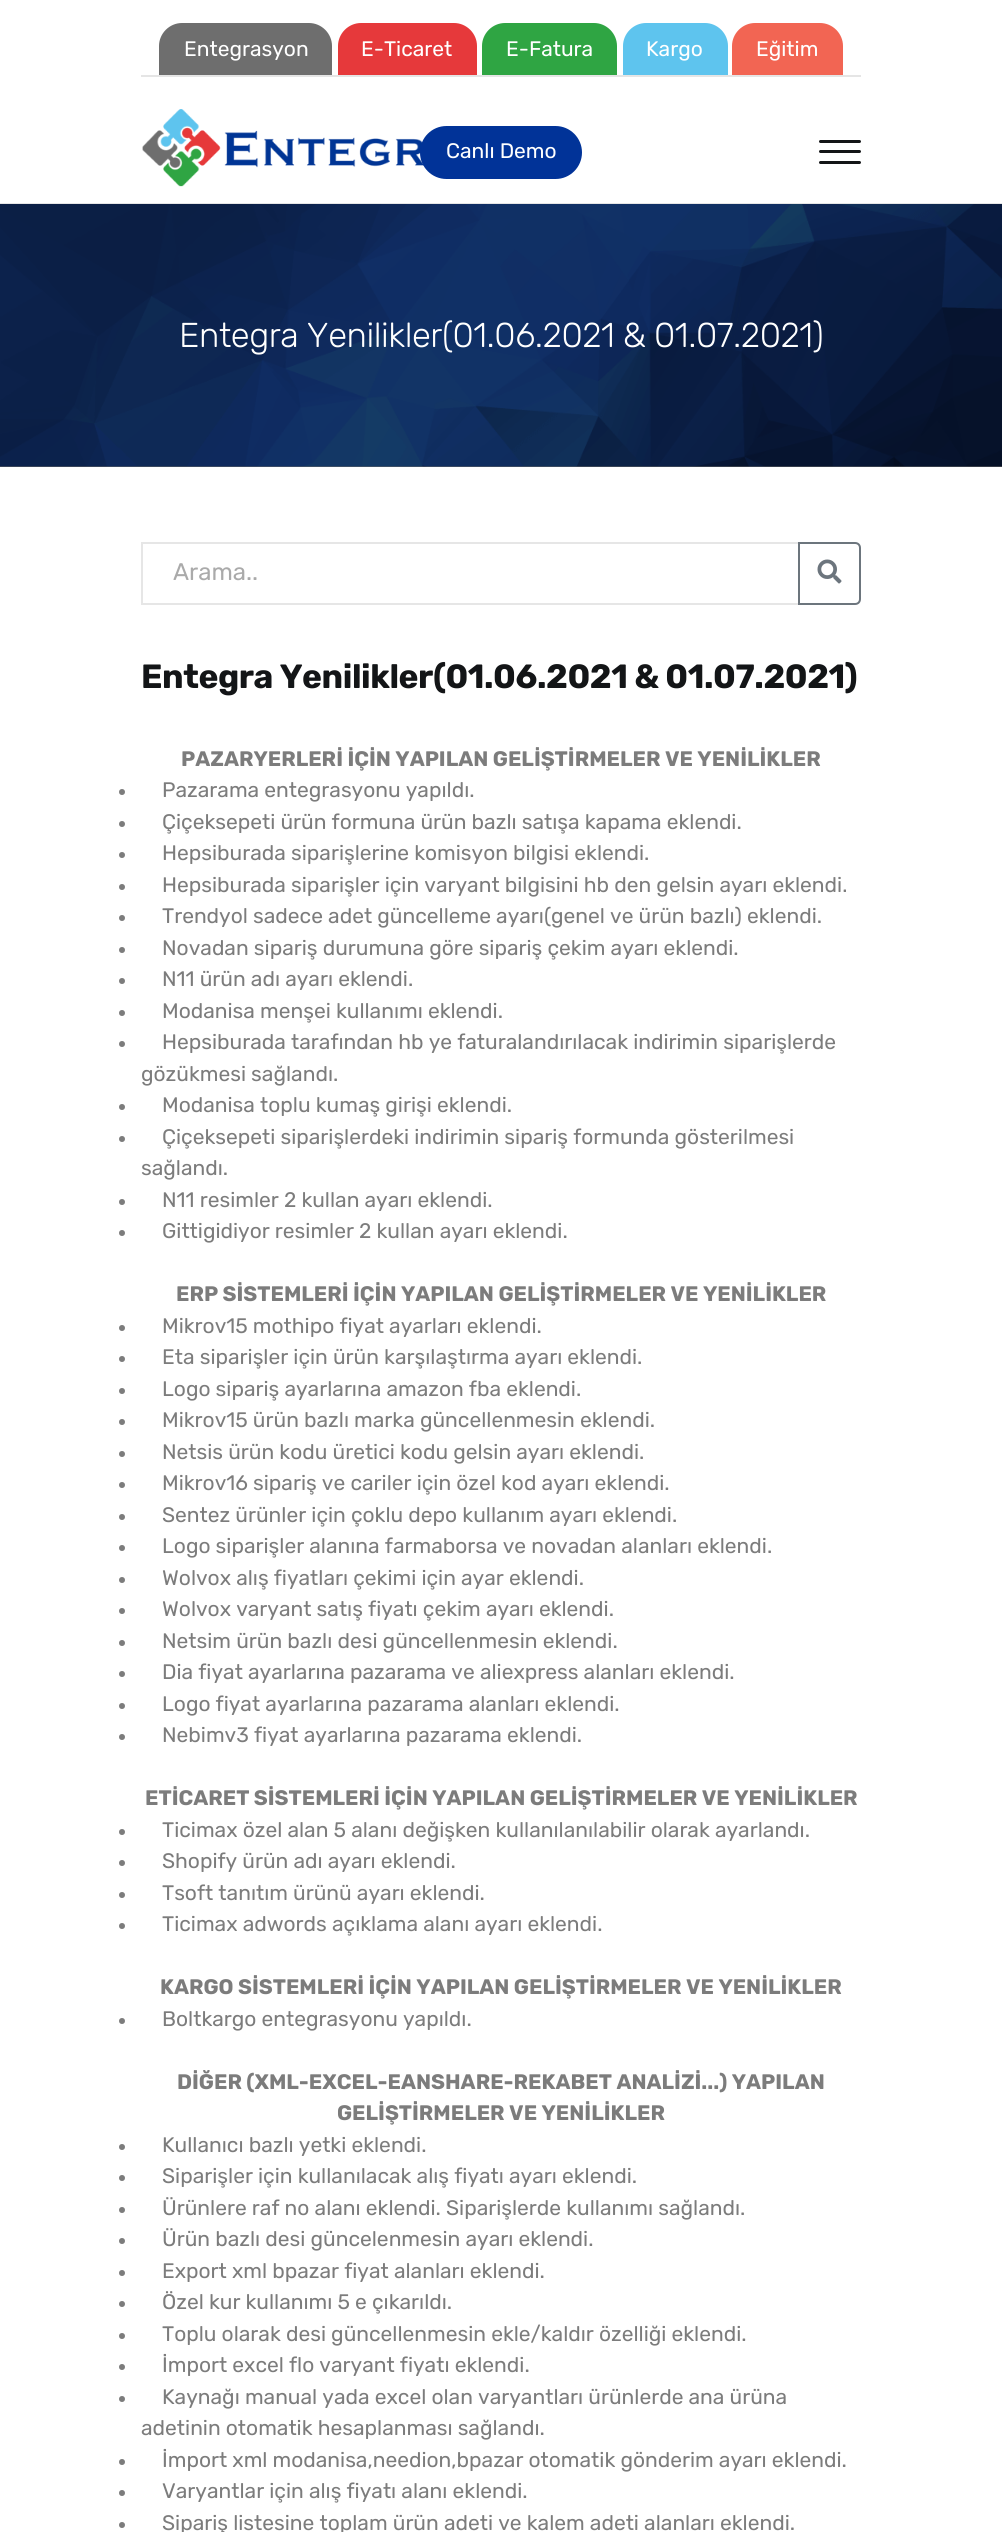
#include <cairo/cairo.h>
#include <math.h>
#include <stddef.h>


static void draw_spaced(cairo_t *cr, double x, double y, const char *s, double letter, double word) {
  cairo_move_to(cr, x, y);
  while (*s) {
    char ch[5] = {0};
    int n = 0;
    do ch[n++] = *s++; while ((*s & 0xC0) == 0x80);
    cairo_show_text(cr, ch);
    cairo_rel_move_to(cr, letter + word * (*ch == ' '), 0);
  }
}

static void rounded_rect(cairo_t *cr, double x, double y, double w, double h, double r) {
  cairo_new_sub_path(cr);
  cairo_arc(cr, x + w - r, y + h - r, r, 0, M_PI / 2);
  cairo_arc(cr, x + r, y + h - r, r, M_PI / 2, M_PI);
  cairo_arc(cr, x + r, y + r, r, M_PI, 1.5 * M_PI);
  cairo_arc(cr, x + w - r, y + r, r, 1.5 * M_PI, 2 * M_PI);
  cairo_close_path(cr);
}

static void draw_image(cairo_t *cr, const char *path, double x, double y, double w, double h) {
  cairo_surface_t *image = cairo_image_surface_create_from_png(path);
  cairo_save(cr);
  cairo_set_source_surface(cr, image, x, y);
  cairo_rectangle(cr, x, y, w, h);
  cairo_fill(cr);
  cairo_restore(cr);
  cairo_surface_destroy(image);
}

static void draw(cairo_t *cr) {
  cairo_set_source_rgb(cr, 1, 1, 1);
  cairo_paint(cr);
  cairo_set_source_rgb(cr, 102 / 255.0, 102 / 255.0, 102 / 255.0);
  cairo_rectangle(cr, 0, 466, 1002, 1);
  cairo_fill(cr);
  cairo_set_source_rgb(cr, 229 / 255.0, 229 / 255.0, 229 / 255.0);
  cairo_rectangle(cr, 141, 75, 720, 2);
  cairo_fill(cr);
  cairo_set_source_rgb(cr, 110 / 255.0, 110 / 255.0, 110 / 255.0);
  cairo_new_path(cr);
  cairo_move_to(cr, 182, 24);
  cairo_line_to(cr, 309, 24);
  cairo_curve_to(cr, 321, 24, 331, 34, 331, 46);
  cairo_line_to(cr, 331, 74);
  cairo_line_to(cr, 160, 74);
  cairo_line_to(cr, 160, 46);
  cairo_curve_to(cr, 160, 34, 170, 24, 182, 24);
  cairo_close_path(cr);
  cairo_fill_preserve(cr);
  cairo_stroke(cr);
  cairo_set_source_rgb(cr, 230 / 255.0, 57 / 255.0, 59 / 255.0);
  cairo_new_path(cr);
  cairo_move_to(cr, 361, 24);
  cairo_line_to(cr, 454, 24);
  cairo_curve_to(cr, 466, 24, 476, 34, 476, 46);
  cairo_line_to(cr, 476, 74);
  cairo_line_to(cr, 339, 74);
  cairo_line_to(cr, 339, 46);
  cairo_curve_to(cr, 339, 34, 349, 24, 361, 24);
  cairo_close_path(cr);
  cairo_fill_preserve(cr);
  cairo_stroke(cr);
  cairo_set_source_rgb(cr, 47 / 255.0, 165 / 255.0, 67 / 255.0);
  cairo_new_path(cr);
  cairo_move_to(cr, 505, 24);
  cairo_line_to(cr, 594, 24);
  cairo_curve_to(cr, 606, 24, 616, 34, 616, 46);
  cairo_line_to(cr, 616, 74);
  cairo_line_to(cr, 483, 74);
  cairo_line_to(cr, 483, 46);
  cairo_curve_to(cr, 483, 34, 493, 24, 505, 24);
  cairo_close_path(cr);
  cairo_fill_preserve(cr);
  cairo_stroke(cr);
  cairo_set_source_rgb(cr, 94 / 255.0, 196 / 255.0, 238 / 255.0);
  cairo_new_path(cr);
  cairo_move_to(cr, 646, 24);
  cairo_line_to(cr, 705, 24);
  cairo_curve_to(cr, 717, 24, 727, 34, 727, 46);
  cairo_line_to(cr, 727, 74);
  cairo_line_to(cr, 624, 74);
  cairo_line_to(cr, 624, 46);
  cairo_curve_to(cr, 624, 34, 634, 24, 646, 24);
  cairo_close_path(cr);
  cairo_fill_preserve(cr);
  cairo_stroke(cr);
  cairo_set_source_rgb(cr, 242 / 255.0, 101 / 255.0, 83 / 255.0);
  cairo_new_path(cr);
  cairo_move_to(cr, 755, 24);
  cairo_line_to(cr, 820, 24);
  cairo_curve_to(cr, 832, 24, 842, 34, 842, 46);
  cairo_line_to(cr, 842, 74);
  cairo_line_to(cr, 733, 74);
  cairo_line_to(cr, 733, 46);
  cairo_curve_to(cr, 733, 34, 743, 24, 755, 24);
  cairo_close_path(cr);
  cairo_fill_preserve(cr);
  cairo_stroke(cr);
  cairo_set_source_rgb(cr, 230 / 255.0, 230 / 255.0, 230 / 255.0);
  cairo_rectangle(cr, 0, 203, 1002, 1);
  cairo_fill(cr);
  draw_image(cr, "images/1.png", 142, 109, 282, 78);
  cairo_set_source_rgb(cr, 1 / 255.0, 51 / 255.0, 152 / 255.0);
  rounded_rect(cr, 420, 126, 162, 53, 26.5);
  cairo_fill(cr);
  cairo_set_source_rgb(cr, 19 / 255.0, 21 / 255.0, 23 / 255.0);
  rounded_rect(cr, 819, 150, 42, 3, 1.5);
  cairo_fill(cr);
  rounded_rect(cr, 819, 140, 42, 3, 1.5);
  cairo_fill(cr);
  rounded_rect(cr, 819, 161, 42, 3, 1.5);
  cairo_fill(cr);
  draw_image(cr, "images/2.png", 0, 204, 1002, 263);
  cairo_rectangle(cr, 142, 543, 657, 61);
  cairo_set_source_rgb(cr, 230 / 255.0, 230 / 255.0, 230 / 255.0);
  cairo_stroke(cr);
  cairo_new_path(cr);
  cairo_move_to(cr, 799, 543);
  cairo_line_to(cr, 855, 543);
  cairo_curve_to(cr, 858, 543, 860, 545, 860, 548);
  cairo_line_to(cr, 860, 599);
  cairo_curve_to(cr, 860, 602, 858, 604, 855, 604);
  cairo_line_to(cr, 799, 604);
  cairo_close_path(cr);
  cairo_set_source_rgb(cr, 108 / 255.0, 117 / 255.0, 125 / 255.0);
  cairo_stroke(cr);
  draw_image(cr, "images/3.png", 817, 559, 25, 25);
  cairo_set_source_rgb(cr, 124 / 255.0, 124 / 255.0, 124 / 255.0);
  cairo_arc(cr, 122, 792, 3, 0, 2 * M_PI);
  cairo_fill(cr);
  cairo_arc(cr, 122, 824, 3, 0, 2 * M_PI);
  cairo_fill(cr);
  cairo_arc(cr, 122, 855, 3, 0, 2 * M_PI);
  cairo_fill(cr);
  cairo_arc(cr, 122, 887, 3, 0, 2 * M_PI);
  cairo_fill(cr);
  cairo_arc(cr, 122, 918, 3, 0, 2 * M_PI);
  cairo_fill(cr);
  cairo_arc(cr, 122, 950, 3, 0, 2 * M_PI);
  cairo_fill(cr);
  cairo_arc(cr, 122, 981, 3, 0, 2 * M_PI);
  cairo_fill(cr);
  cairo_arc(cr, 122, 1013, 3, 0, 2 * M_PI);
  cairo_fill(cr);
  cairo_arc(cr, 122, 1044, 3, 0, 2 * M_PI);
  cairo_fill(cr);
  cairo_arc(cr, 122, 1107, 3, 0, 2 * M_PI);
  cairo_fill(cr);
  cairo_arc(cr, 122, 1139, 3, 0, 2 * M_PI);
  cairo_fill(cr);
  cairo_arc(cr, 122, 1202, 3, 0, 2 * M_PI);
  cairo_fill(cr);
  cairo_arc(cr, 122, 1233, 3, 0, 2 * M_PI);
  cairo_fill(cr);
  cairo_arc(cr, 122, 1328, 3, 0, 2 * M_PI);
  cairo_fill(cr);
  cairo_arc(cr, 122, 1359, 3, 0, 2 * M_PI);
  cairo_fill(cr);
  cairo_arc(cr, 122, 1391, 3, 0, 2 * M_PI);
  cairo_fill(cr);
  cairo_arc(cr, 122, 1422, 3, 0, 2 * M_PI);
  cairo_fill(cr);
  cairo_arc(cr, 122, 1454, 3, 0, 2 * M_PI);
  cairo_fill(cr);
  cairo_arc(cr, 122, 1485, 3, 0, 2 * M_PI);
  cairo_fill(cr);
  cairo_arc(cr, 122, 1517, 3, 0, 2 * M_PI);
  cairo_fill(cr);
  cairo_arc(cr, 122, 1548, 3, 0, 2 * M_PI);
  cairo_fill(cr);
  cairo_arc(cr, 122, 1580, 3, 0, 2 * M_PI);
  cairo_fill(cr);
  cairo_arc(cr, 122, 1611, 3, 0, 2 * M_PI);
  cairo_fill(cr);
  cairo_arc(cr, 122, 1643, 3, 0, 2 * M_PI);
  cairo_fill(cr);
  cairo_arc(cr, 122, 1674, 3, 0, 2 * M_PI);
  cairo_fill(cr);
  cairo_arc(cr, 122, 1706, 3, 0, 2 * M_PI);
  cairo_fill(cr);
  cairo_arc(cr, 122, 1737, 3, 0, 2 * M_PI);
  cairo_fill(cr);
  cairo_arc(cr, 122, 1832, 3, 0, 2 * M_PI);
  cairo_fill(cr);
  cairo_arc(cr, 122, 1863, 3, 0, 2 * M_PI);
  cairo_fill(cr);
  cairo_arc(cr, 122, 1895, 3, 0, 2 * M_PI);
  cairo_fill(cr);
  cairo_arc(cr, 122, 1926, 3, 0, 2 * M_PI);
  cairo_fill(cr);
  cairo_arc(cr, 122, 2021, 3, 0, 2 * M_PI);
  cairo_fill(cr);
  cairo_arc(cr, 122, 2147, 3, 0, 2 * M_PI);
  cairo_fill(cr);
  cairo_arc(cr, 122, 2178, 3, 0, 2 * M_PI);
  cairo_fill(cr);
  cairo_arc(cr, 122, 2210, 3, 0, 2 * M_PI);
  cairo_fill(cr);
  cairo_arc(cr, 122, 2241, 3, 0, 2 * M_PI);
  cairo_fill(cr);
  cairo_arc(cr, 122, 2273, 3, 0, 2 * M_PI);
  cairo_fill(cr);
  cairo_arc(cr, 122, 2304, 3, 0, 2 * M_PI);
  cairo_fill(cr);
  cairo_arc(cr, 122, 2336, 3, 0, 2 * M_PI);
  cairo_fill(cr);
  cairo_arc(cr, 122, 2367, 3, 0, 2 * M_PI);
  cairo_fill(cr);
  cairo_arc(cr, 122, 2399, 3, 0, 2 * M_PI);
  cairo_fill(cr);
  cairo_arc(cr, 122, 2462, 3, 0, 2 * M_PI);
  cairo_fill(cr);
  cairo_arc(cr, 122, 2493, 3, 0, 2 * M_PI);
  cairo_fill(cr);
  cairo_arc(cr, 122, 2525, 3, 0, 2 * M_PI);
  cairo_fill(cr);
  cairo_select_font_face(cr, "Rubik", CAIRO_FONT_SLANT_NORMAL, CAIRO_FONT_WEIGHT_NORMAL);
  cairo_set_font_size(cr, 21);
  cairo_set_source_rgb(cr, 1, 1, 1);
  cairo_move_to(cr, 184, 56);
  cairo_show_text(cr, "Entegrasyon");
  cairo_move_to(cr, 361, 56);
  cairo_show_text(cr, "E-Ticaret");
  cairo_move_to(cr, 506, 56);
  cairo_show_text(cr, "E-Fatura");
  cairo_move_to(cr, 646, 56);
  cairo_show_text(cr, "Kargo");
  cairo_move_to(cr, 756, 56);
  cairo_show_text(cr, "Eğitim");
  cairo_move_to(cr, 446, 158);
  cairo_show_text(cr, "Canlı Demo");
  cairo_select_font_face(cr, "Rubik Light", CAIRO_FONT_SLANT_NORMAL, CAIRO_FONT_WEIGHT_NORMAL);
  cairo_set_font_size(cr, 34.5);
  draw_spaced(cr, 179, 347, "Entegra Yenilikler(01.06.2021 & 01.07.2021)", -0.45, 0);
  cairo_select_font_face(cr, "Rubik", CAIRO_FONT_SLANT_NORMAL, CAIRO_FONT_WEIGHT_NORMAL);
  cairo_set_font_size(cr, 24);
  cairo_set_source_rgb(cr, 170 / 255.0, 170 / 255.0, 170 / 255.0);
  cairo_move_to(cr, 173, 580);
  cairo_show_text(cr, "Arama..");
  cairo_select_font_face(cr, "Rubik", CAIRO_FONT_SLANT_NORMAL, CAIRO_FONT_WEIGHT_BOLD);
  cairo_set_font_size(cr, 33.6);
  cairo_set_source_rgb(cr, 19 / 255.0, 21 / 255.0, 23 / 255.0);
  draw_spaced(cr, 141, 688, "Entegra Yenilikler(01.06.2021 & 01.07.2021)", -0.45, 0);
  cairo_set_font_size(cr, 21);
  cairo_set_source_rgb(cr, 124 / 255.0, 124 / 255.0, 124 / 255.0);
  cairo_move_to(cr, 181, 766);
  cairo_show_text(cr, "PAZARYERLERİ İÇİN YAPILAN GELİŞTİRMELER VE YENİLİKLER");
  cairo_select_font_face(cr, "Rubik", CAIRO_FONT_SLANT_NORMAL, CAIRO_FONT_WEIGHT_NORMAL);
  cairo_move_to(cr, 162, 797);
  cairo_show_text(cr, "Pazarama entegrasyonu yapıldı.");
  cairo_move_to(cr, 162, 829);
  cairo_show_text(cr, "Çiçeksepeti ürün formuna ürün bazlı satışa kapama eklendi.");
  cairo_move_to(cr, 162, 860);
  cairo_show_text(cr, "Hepsiburada siparişlerine komisyon bilgisi eklendi.");
  cairo_move_to(cr, 162, 892);
  cairo_show_text(cr, "Hepsiburada siparişler için varyant bilgisini hb den gelsin ayarı eklendi.");
  cairo_move_to(cr, 162, 923);
  cairo_show_text(cr, "Trendyol sadece adet güncelleme ayarı(genel ve ürün bazlı) eklendi.");
  cairo_move_to(cr, 162, 955);
  cairo_show_text(cr, "Novadan sipariş durumuna göre sipariş çekim ayarı eklendi.");
  cairo_move_to(cr, 162, 986);
  cairo_show_text(cr, "N11 ürün adı ayarı eklendi.");
  cairo_move_to(cr, 162, 1018);
  cairo_show_text(cr, "Modanisa menşei kullanımı eklendi.");
  cairo_move_to(cr, 162, 1049);
  cairo_show_text(cr, "Hepsiburada tarafından hb ye faturalandırılacak indirimin siparişlerde");
  cairo_move_to(cr, 141, 1081);
  cairo_show_text(cr, "gözükmesi sağlandı.");
  cairo_move_to(cr, 162, 1112);
  cairo_show_text(cr, "Modanisa toplu kumaş girişi eklendi.");
  cairo_move_to(cr, 162, 1144);
  cairo_show_text(cr, "Çiçeksepeti siparişlerdeki indirimin sipariş formunda gösterilmesi");
  cairo_move_to(cr, 141, 1175);
  cairo_show_text(cr, "sağlandı.");
  cairo_move_to(cr, 162, 1207);
  cairo_show_text(cr, "N11 resimler 2 kullan ayarı eklendi.");
  cairo_move_to(cr, 162, 1238);
  cairo_show_text(cr, "Gittigidiyor resimler 2 kullan ayarı eklendi.");
  cairo_select_font_face(cr, "Rubik", CAIRO_FONT_SLANT_NORMAL, CAIRO_FONT_WEIGHT_BOLD);
  cairo_move_to(cr, 176, 1301);
  cairo_show_text(cr, "ERP SİSTEMLERİ İÇİN YAPILAN GELİŞTİRMELER VE YENİLİKLER");
  cairo_select_font_face(cr, "Rubik", CAIRO_FONT_SLANT_NORMAL, CAIRO_FONT_WEIGHT_NORMAL);
  cairo_move_to(cr, 162, 1333);
  cairo_show_text(cr, "Mikrov15 mothipo fiyat ayarları eklendi.");
  cairo_move_to(cr, 162, 1364);
  cairo_show_text(cr, "Eta siparişler için ürün karşılaştırma ayarı eklendi.");
  cairo_move_to(cr, 162, 1396);
  cairo_show_text(cr, "Logo sipariş ayarlarına amazon fba eklendi.");
  cairo_move_to(cr, 162, 1427);
  cairo_show_text(cr, "Mikrov15 ürün bazlı marka güncellenmesin eklendi.");
  cairo_move_to(cr, 162, 1459);
  cairo_show_text(cr, "Netsis ürün kodu üretici kodu gelsin ayarı eklendi.");
  cairo_move_to(cr, 162, 1490);
  cairo_show_text(cr, "Mikrov16 sipariş ve cariler için özel kod ayarı eklendi.");
  cairo_move_to(cr, 162, 1522);
  cairo_show_text(cr, "Sentez ürünler için çoklu depo kullanım ayarı eklendi.");
  cairo_move_to(cr, 162, 1553);
  cairo_show_text(cr, "Logo siparişler alanına farmaborsa ve novadan alanları eklendi.");
  cairo_move_to(cr, 162, 1585);
  cairo_show_text(cr, "Wolvox alış fiyatları çekimi için ayar eklendi.");
  cairo_move_to(cr, 162, 1616);
  cairo_show_text(cr, "Wolvox varyant satış fiyatı çekim ayarı eklendi.");
  cairo_move_to(cr, 162, 1648);
  cairo_show_text(cr, "Netsim ürün bazlı desi güncellenmesin eklendi.");
  cairo_move_to(cr, 162, 1679);
  cairo_show_text(cr, "Dia fiyat ayarlarına pazarama ve aliexpress alanları eklendi.");
  cairo_move_to(cr, 162, 1711);
  cairo_show_text(cr, "Logo fiyat ayarlarına pazarama alanları eklendi.");
  cairo_move_to(cr, 162, 1742);
  cairo_show_text(cr, "Nebimv3 fiyat ayarlarına pazarama eklendi.");
  cairo_select_font_face(cr, "Rubik", CAIRO_FONT_SLANT_NORMAL, CAIRO_FONT_WEIGHT_BOLD);
  cairo_move_to(cr, 145, 1805);
  cairo_show_text(cr, "ETİCARET SİSTEMLERİ İÇİN YAPILAN GELİŞTİRMELER VE YENİLİKLER");
  cairo_select_font_face(cr, "Rubik", CAIRO_FONT_SLANT_NORMAL, CAIRO_FONT_WEIGHT_NORMAL);
  cairo_move_to(cr, 162, 1837);
  cairo_show_text(cr, "Ticimax özel alan 5 alanı değişken kullanılanılabilir olarak ayarlandı.");
  cairo_move_to(cr, 162, 1868);
  cairo_show_text(cr, "Shopify ürün adı ayarı eklendi.");
  cairo_move_to(cr, 162, 1900);
  cairo_show_text(cr, "Tsoft tanıtım ürünü ayarı eklendi.");
  cairo_move_to(cr, 162, 1931);
  cairo_show_text(cr, "Ticimax adwords açıklama alanı ayarı eklendi.");
  cairo_select_font_face(cr, "Rubik", CAIRO_FONT_SLANT_NORMAL, CAIRO_FONT_WEIGHT_BOLD);
  cairo_move_to(cr, 160, 1994);
  cairo_show_text(cr, "KARGO SİSTEMLERİ İÇİN YAPILAN GELİŞTİRMELER VE YENİLİKLER");
  cairo_select_font_face(cr, "Rubik", CAIRO_FONT_SLANT_NORMAL, CAIRO_FONT_WEIGHT_NORMAL);
  cairo_move_to(cr, 162, 2026);
  cairo_show_text(cr, "Boltkargo entegrasyonu yapıldı.");
  cairo_select_font_face(cr, "Rubik", CAIRO_FONT_SLANT_NORMAL, CAIRO_FONT_WEIGHT_BOLD);
  cairo_move_to(cr, 177, 2089);
  cairo_show_text(cr, "DİĞER (XML-EXCEL-EANSHARE-REKABET ANALİZİ...) YAPILAN");
  cairo_move_to(cr, 337, 2120);
  cairo_show_text(cr, "GELİŞTİRMELER VE YENİLİKLER");
  cairo_select_font_face(cr, "Rubik", CAIRO_FONT_SLANT_NORMAL, CAIRO_FONT_WEIGHT_NORMAL);
  cairo_move_to(cr, 162, 2152);
  cairo_show_text(cr, "Kullanıcı bazlı yetki eklendi.");
  cairo_move_to(cr, 162, 2183);
  cairo_show_text(cr, "Siparişler için kullanılacak alış fiyatı ayarı eklendi.");
  cairo_move_to(cr, 162, 2215);
  cairo_show_text(cr, "Ürünlere raf no alanı eklendi. Siparişlerde kullanımı sağlandı.");
  cairo_move_to(cr, 162, 2246);
  cairo_show_text(cr, "Ürün bazlı desi güncelenmesin ayarı eklendi.");
  cairo_move_to(cr, 162, 2278);
  cairo_show_text(cr, "Export xml bpazar fiyat alanları eklendi.");
  cairo_move_to(cr, 162, 2309);
  cairo_show_text(cr, "Özel kur kullanımı 5 e çıkarıldı.");
  cairo_move_to(cr, 162, 2341);
  cairo_show_text(cr, "Toplu olarak desi güncellenmesin ekle/kaldır özelliği eklendi.");
  cairo_move_to(cr, 162, 2372);
  cairo_show_text(cr, "İmport excel flo varyant fiyatı eklendi.");
  cairo_move_to(cr, 162, 2404);
  cairo_show_text(cr, "Kaynağı manual yada excel olan varyantları ürünlerde ana ürüna");
  cairo_move_to(cr, 141, 2435);
  cairo_show_text(cr, "adetinin otomatik hesaplanması sağlandı.");
  cairo_move_to(cr, 162, 2467);
  cairo_show_text(cr, "İmport xml modanisa,needion,bpazar otomatik gönderim ayarı eklendi.");
  cairo_move_to(cr, 162, 2498);
  cairo_show_text(cr, "Varyantlar için alış fiyatı alanı eklendi.");
  cairo_move_to(cr, 162, 2530);
  cairo_show_text(cr, "Sipariş listesine toplam ürün adeti ve kalem adeti alanları eklendi.");
}

int main(void) {
  cairo_surface_t *surface = cairo_image_surface_create(CAIRO_FORMAT_RGB24, 1002, 2532);
  cairo_t *cr = cairo_create(surface);
  cairo_font_options_t *options = cairo_font_options_create();
  cairo_font_options_set_hint_metrics(options, CAIRO_HINT_METRICS_OFF);
  cairo_font_options_set_hint_style(options, CAIRO_HINT_STYLE_NONE);
  cairo_set_font_options(cr, options);
  cairo_set_miter_limit(cr, 4);
  draw(cr);
  cairo_surface_write_to_png(surface, "out.png");
  cairo_font_options_destroy(options);
  cairo_destroy(cr);
  cairo_surface_destroy(surface);
  return 0;
}
